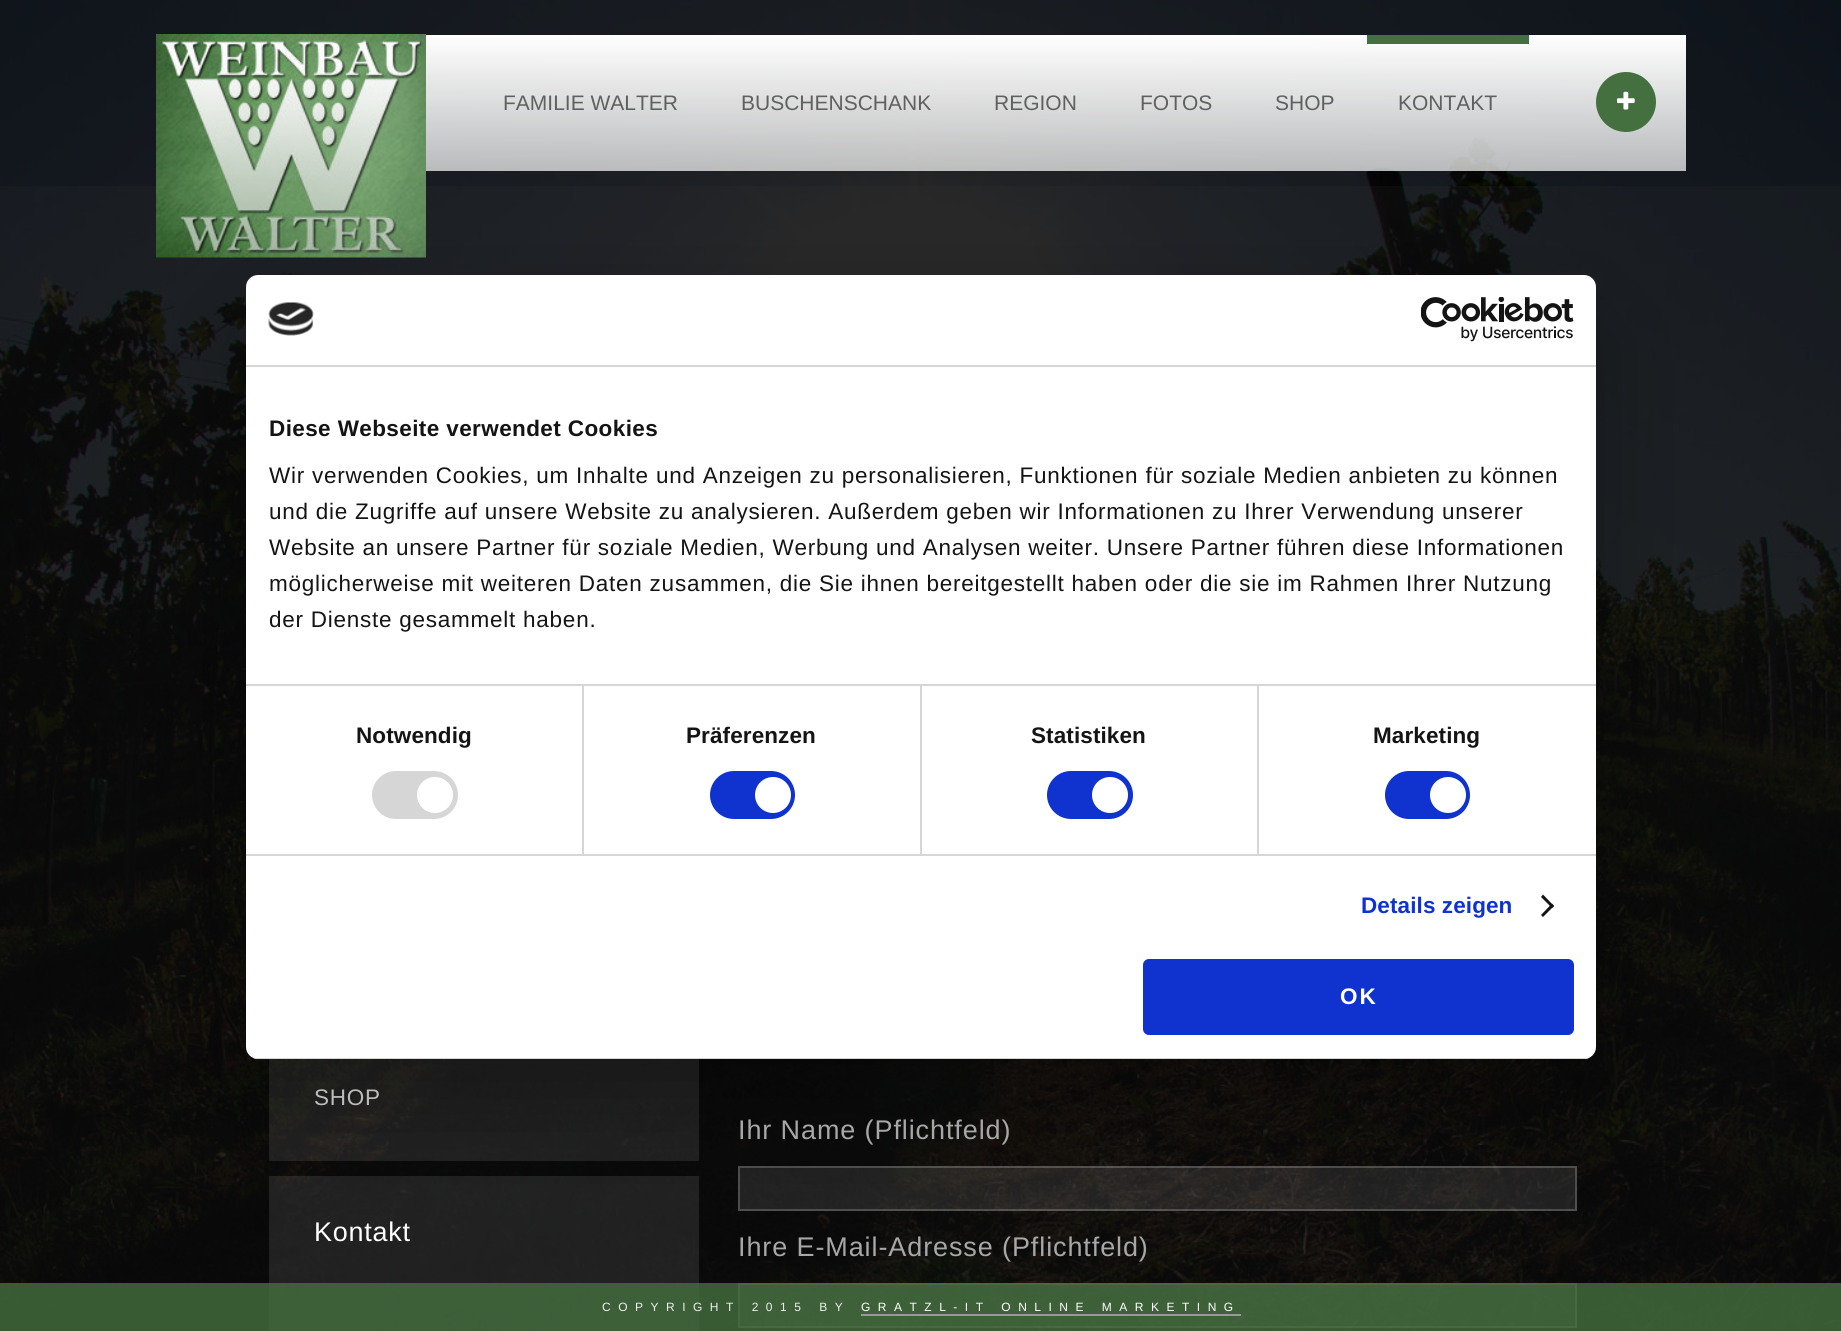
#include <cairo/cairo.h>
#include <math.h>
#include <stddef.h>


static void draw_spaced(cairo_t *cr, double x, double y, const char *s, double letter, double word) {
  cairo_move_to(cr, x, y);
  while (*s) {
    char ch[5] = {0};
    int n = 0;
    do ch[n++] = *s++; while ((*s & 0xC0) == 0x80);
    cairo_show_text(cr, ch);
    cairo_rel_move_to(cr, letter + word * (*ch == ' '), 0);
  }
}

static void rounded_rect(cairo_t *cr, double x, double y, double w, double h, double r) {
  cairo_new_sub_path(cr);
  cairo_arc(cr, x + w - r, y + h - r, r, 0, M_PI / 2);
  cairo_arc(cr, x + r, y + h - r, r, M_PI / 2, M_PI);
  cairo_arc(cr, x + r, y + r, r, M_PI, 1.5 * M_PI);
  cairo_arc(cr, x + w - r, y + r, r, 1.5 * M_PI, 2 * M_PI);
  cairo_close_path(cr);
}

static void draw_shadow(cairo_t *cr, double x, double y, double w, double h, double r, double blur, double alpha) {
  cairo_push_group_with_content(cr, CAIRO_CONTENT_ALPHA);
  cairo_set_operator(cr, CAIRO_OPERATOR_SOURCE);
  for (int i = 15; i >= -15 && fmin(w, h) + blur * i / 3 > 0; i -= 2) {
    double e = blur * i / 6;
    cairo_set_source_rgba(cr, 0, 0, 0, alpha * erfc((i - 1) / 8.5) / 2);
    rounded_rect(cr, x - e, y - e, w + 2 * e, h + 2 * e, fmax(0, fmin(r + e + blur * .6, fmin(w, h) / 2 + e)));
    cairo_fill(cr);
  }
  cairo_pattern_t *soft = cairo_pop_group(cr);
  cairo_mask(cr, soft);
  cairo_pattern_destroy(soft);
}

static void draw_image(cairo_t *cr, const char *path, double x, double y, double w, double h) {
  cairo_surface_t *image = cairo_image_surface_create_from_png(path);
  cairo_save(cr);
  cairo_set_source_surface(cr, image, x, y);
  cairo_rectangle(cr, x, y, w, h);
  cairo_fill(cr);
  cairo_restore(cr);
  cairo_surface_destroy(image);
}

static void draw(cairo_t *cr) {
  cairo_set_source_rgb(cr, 1, 1, 1);
  cairo_paint(cr);
  draw_image(cr, "images/1.png", 0, 0, 1841, 1331);
  cairo_set_source_rgba(cr, 55 / 255.0, 55 / 255.0, 55 / 255.0, 0.15);
  cairo_rectangle(cr, 0, 186, 1841, 1145);
  cairo_fill(cr);
  draw_image(cr, "images/2.png", 156, 34, 270, 224);
  cairo_set_source_rgb(cr, 68 / 255.0, 112 / 255.0, 63 / 255.0);
  cairo_rectangle(cr, 1367, 35, 162, 9);
  cairo_fill(cr);
  cairo_arc(cr, 1626, 102, 30, 0, 2 * M_PI);
  cairo_fill(cr);
  draw_image(cr, "images/3.png", 1617, 91, 18, 19);
  cairo_set_source_rgba(cr, 1, 1, 1, 0.1);
  cairo_rectangle(cr, 269, 1059, 430, 102);
  cairo_fill(cr);
  cairo_rectangle(cr, 269, 1176, 430, 155);
  cairo_fill(cr);
  cairo_rectangle(cr, 738, 1166, 839, 45);
  cairo_fill(cr);
  cairo_rectangle(cr, 739, 1167, 837, 43);
  cairo_set_source_rgba(cr, 1, 1, 1, 0.2);
  cairo_stroke(cr);
  cairo_set_source_rgb(cr, 0, 0, 0);
  draw_shadow(cr, 246, 323, 1350, 784, 12, 51, 0.3);
  cairo_set_source_rgb(cr, 1, 1, 1);
  rounded_rect(cr, 246, 275, 1350, 784, 12);
  cairo_fill(cr);
  cairo_set_source_rgb(cr, 214 / 255.0, 214 / 255.0, 214 / 255.0);
  cairo_rectangle(cr, 246, 365, 1350, 2);
  cairo_fill(cr);
  draw_image(cr, "images/4.png", 268, 302, 46, 34);
  draw_image(cr, "images/5.png", 1421, 297, 153, 45);
  cairo_rectangle(cr, 246, 684, 1350, 2);
  cairo_fill(cr);
  cairo_rectangle(cr, 246, 854, 1350, 2);
  cairo_fill(cr);
  cairo_rectangle(cr, 582, 686, 2, 168);
  cairo_fill(cr);
  rounded_rect(cr, 372, 771, 86, 48, 24);
  cairo_fill(cr);
  cairo_set_source_rgb(cr, 1, 1, 1);
  cairo_arc(cr, 435, 795, 18, 0, 2 * M_PI);
  cairo_fill(cr);
  cairo_set_source_rgb(cr, 214 / 255.0, 214 / 255.0, 214 / 255.0);
  cairo_rectangle(cr, 920, 686, 2, 168);
  cairo_fill(cr);
  cairo_set_source_rgb(cr, 16 / 255.0, 50 / 255.0, 207 / 255.0);
  rounded_rect(cr, 710, 771, 85, 48, 24);
  cairo_fill(cr);
  cairo_set_source_rgb(cr, 1, 1, 1);
  cairo_arc(cr, 773, 795, 18, 0, 2 * M_PI);
  cairo_fill(cr);
  cairo_set_source_rgb(cr, 214 / 255.0, 214 / 255.0, 214 / 255.0);
  cairo_rectangle(cr, 1257, 686, 2, 168);
  cairo_fill(cr);
  cairo_set_source_rgb(cr, 16 / 255.0, 50 / 255.0, 207 / 255.0);
  rounded_rect(cr, 1047, 771, 86, 48, 24);
  cairo_fill(cr);
  cairo_set_source_rgb(cr, 1, 1, 1);
  cairo_arc(cr, 1110, 795, 18, 0, 2 * M_PI);
  cairo_fill(cr);
  cairo_set_source_rgb(cr, 16 / 255.0, 50 / 255.0, 207 / 255.0);
  rounded_rect(cr, 1385, 771, 85, 48, 24);
  cairo_fill(cr);
  cairo_set_source_rgb(cr, 1, 1, 1);
  cairo_arc(cr, 1448, 795, 18, 0, 2 * M_PI);
  cairo_fill(cr);
  cairo_set_source_rgb(cr, 20 / 255.0, 20 / 255.0, 20 / 255.0);
  cairo_new_path(cr);
  cairo_move_to(cr, 1543, 894.5);
  cairo_line_to(cr, 1554, 906);
  cairo_line_to(cr, 1552, 908);
  cairo_line_to(cr, 1541, 897);
  cairo_close_path(cr);
  cairo_fill(cr);
  cairo_new_path(cr);
  cairo_move_to(cr, 1552, 903.5);
  cairo_line_to(cr, 1554, 906);
  cairo_line_to(cr, 1543, 917);
  cairo_line_to(cr, 1541, 915);
  cairo_close_path(cr);
  cairo_fill(cr);
  cairo_save(cr);
  rounded_rect(cr, 246, 275, 1350, 784, 12);
  cairo_clip(cr);
  cairo_set_source_rgb(cr, 214 / 255.0, 214 / 255.0, 214 / 255.0);
  cairo_rectangle(cr, 246, 1058, 1350, 1);
  cairo_fill(cr);
  cairo_restore(cr);
  cairo_set_source_rgb(cr, 16 / 255.0, 50 / 255.0, 207 / 255.0);
  rounded_rect(cr, 1144.5, 960.5, 428, 73, 4.5);
  cairo_fill_preserve(cr);
  cairo_set_line_width(cr, 3);
  cairo_stroke(cr);
  cairo_set_source_rgba(cr, 1, 1, 1, 0.1);
  cairo_rectangle(cr, 738, 1283, 839, 45);
  cairo_fill(cr);
  cairo_rectangle(cr, 739, 1284, 837, 43);
  cairo_set_source_rgba(cr, 1, 1, 1, 0.2);
  cairo_set_line_width(cr, 2);
  cairo_stroke(cr);
  cairo_set_source_rgba(cr, 68 / 255.0, 112 / 255.0, 63 / 255.0, 0.8);
  cairo_rectangle(cr, 0, 1283, 1841, 48);
  cairo_fill(cr);
  cairo_set_source_rgb(cr, 153 / 255.0, 153 / 255.0, 153 / 255.0);
  cairo_rectangle(cr, 861, 1314, 380, 2);
  cairo_fill(cr);
  cairo_select_font_face(cr, "Liberation Sans", CAIRO_FONT_SLANT_NORMAL, CAIRO_FONT_WEIGHT_NORMAL);
  cairo_set_font_size(cr, 21);
  cairo_set_source_rgb(cr, 96 / 255.0, 96 / 255.0, 96 / 255.0);
  cairo_move_to(cr, 503, 110);
  cairo_show_text(cr, "FAMILIE WALTER");
  cairo_move_to(cr, 741, 110);
  cairo_show_text(cr, "BUSCHENSCHANK");
  cairo_move_to(cr, 994, 110);
  cairo_show_text(cr, "REGION");
  cairo_move_to(cr, 1140, 110);
  cairo_show_text(cr, "FOTOS");
  cairo_move_to(cr, 1275, 110);
  cairo_show_text(cr, "SHOP");
  cairo_move_to(cr, 1398, 110);
  cairo_show_text(cr, "KONTAKT");
  cairo_select_font_face(cr, "Liberation Sans", CAIRO_FONT_SLANT_NORMAL, CAIRO_FONT_WEIGHT_BOLD);
  cairo_set_font_size(cr, 22.5);
  cairo_set_source_rgb(cr, 20 / 255.0, 20 / 255.0, 20 / 255.0);
  draw_spaced(cr, 269, 436, "Diese Webseite verwendet Cookies", 0.4, 0);
  cairo_select_font_face(cr, "Liberation Sans", CAIRO_FONT_SLANT_NORMAL, CAIRO_FONT_WEIGHT_NORMAL);
  draw_spaced(cr, 269, 483, "Wir verwenden Cookies, um Inhalte und Anzeigen zu personalisieren, Funktionen für soziale Medien anbieten zu können", 0.75, 0);
  draw_spaced(cr, 269, 519, "und die Zugriffe auf unsere Website zu analysieren. Außerdem geben wir Informationen zu Ihrer Verwendung unserer", 0.75, 0);
  draw_spaced(cr, 269, 555, "Website an unsere Partner für soziale Medien, Werbung und Analysen weiter. Unsere Partner führen diese Informationen", 0.75, 0);
  draw_spaced(cr, 269, 591, "möglicherweise mit weiteren Daten zusammen, die Sie ihnen bereitgestellt haben oder die sie im Rahmen Ihrer Nutzung", 0.75, 0);
  draw_spaced(cr, 269, 627, "der Dienste gesammelt haben.", 0.75, 0);
  cairo_select_font_face(cr, "Liberation Sans", CAIRO_FONT_SLANT_NORMAL, CAIRO_FONT_WEIGHT_BOLD);
  draw_spaced(cr, 356, 743, "Notwendig", 0.1, 0);
  draw_spaced(cr, 686, 743, "Präferenzen", 0.1, 0);
  draw_spaced(cr, 1031, 743, "Statistiken", 0.1, 0);
  draw_spaced(cr, 1373, 743, "Marketing", 0.1, 0);
  cairo_set_source_rgb(cr, 16 / 255.0, 50 / 255.0, 207 / 255.0);
  draw_spaced(cr, 1361, 913, "Details zeigen", 0.1, 0);
  cairo_set_source_rgb(cr, 1, 1, 1);
  draw_spaced(cr, 1340, 1004, "OK", 2, 0);
  cairo_select_font_face(cr, "Liberation Sans", CAIRO_FONT_SLANT_NORMAL, CAIRO_FONT_WEIGHT_NORMAL);
  cairo_set_source_rgb(cr, 188 / 255.0, 188 / 255.0, 188 / 255.0);
  draw_spaced(cr, 314, 1105, "SHOP", 0.75, 0);
  cairo_set_font_size(cr, 27);
  cairo_set_source_rgb(cr, 1, 1, 1);
  draw_spaced(cr, 314, 1241, "Kontakt", 0.75, 0);
  cairo_set_source_rgb(cr, 167 / 255.0, 167 / 255.0, 167 / 255.0);
  draw_spaced(cr, 738, 1139, "Ihr Name (Pflichtfeld)", 0.9, 0);
  draw_spaced(cr, 738, 1256, "Ihre E-Mail-Adresse (Pflichtfeld)", 0.9, 0);
  cairo_set_font_size(cr, 12);
  cairo_set_source_rgb(cr, 238 / 255.0, 238 / 255.0, 238 / 255.0);
  draw_spaced(cr, 602, 1311, "COPYRIGHT 2015 BY", 7.5, 0);
  cairo_set_source_rgb(cr, 1, 1, 1);
  draw_spaced(cr, 861, 1311, "GRATZL-IT ONLINE MARKETING", 7.5, 0);
}

int main(void) {
  cairo_surface_t *surface = cairo_image_surface_create(CAIRO_FORMAT_RGB24, 1841, 1331);
  cairo_t *cr = cairo_create(surface);
  cairo_font_options_t *options = cairo_font_options_create();
  cairo_font_options_set_hint_metrics(options, CAIRO_HINT_METRICS_OFF);
  cairo_font_options_set_hint_style(options, CAIRO_HINT_STYLE_NONE);
  cairo_set_font_options(cr, options);
  cairo_set_miter_limit(cr, 4);
  draw(cr);
  cairo_surface_write_to_png(surface, "out.png");
  cairo_font_options_destroy(options);
  cairo_destroy(cr);
  cairo_surface_destroy(surface);
  return 0;
}
